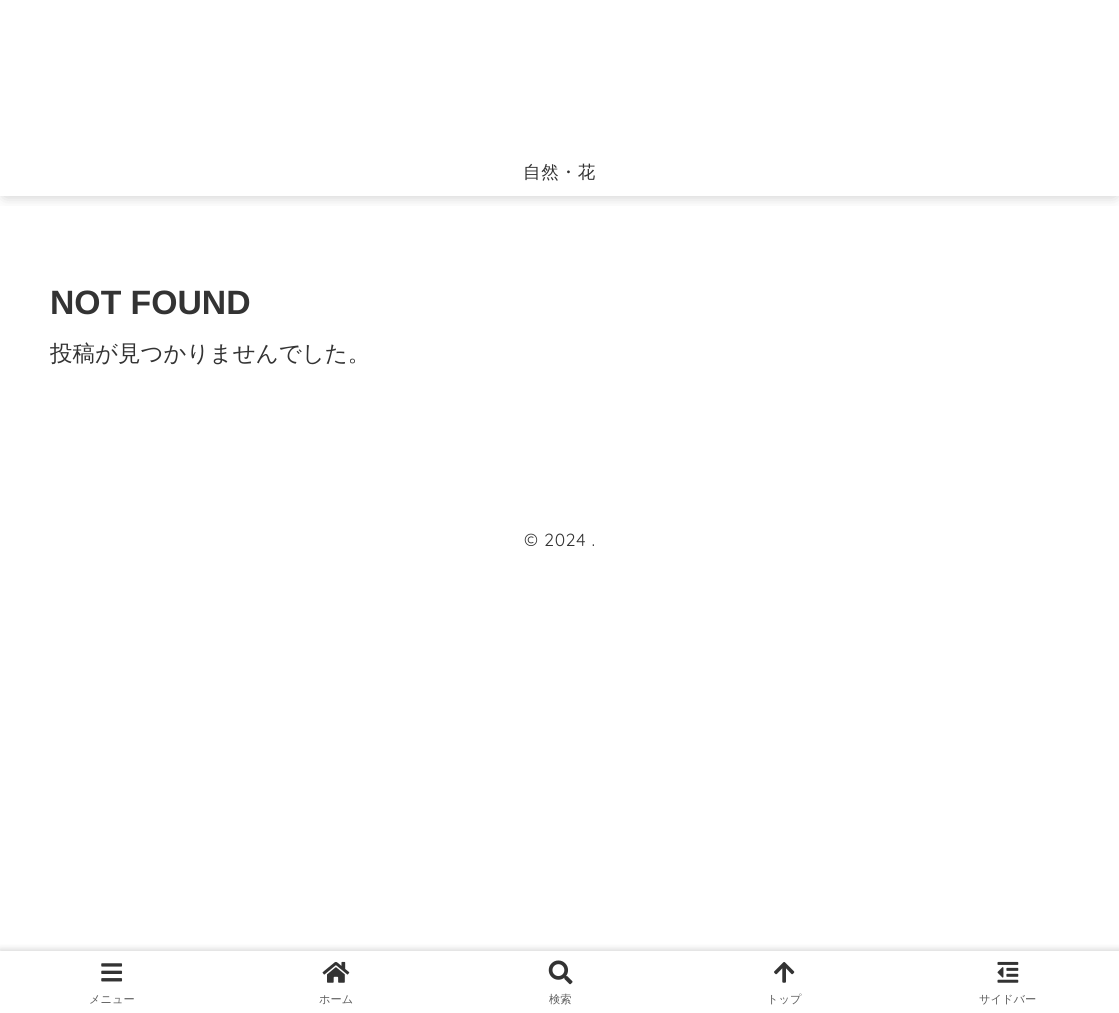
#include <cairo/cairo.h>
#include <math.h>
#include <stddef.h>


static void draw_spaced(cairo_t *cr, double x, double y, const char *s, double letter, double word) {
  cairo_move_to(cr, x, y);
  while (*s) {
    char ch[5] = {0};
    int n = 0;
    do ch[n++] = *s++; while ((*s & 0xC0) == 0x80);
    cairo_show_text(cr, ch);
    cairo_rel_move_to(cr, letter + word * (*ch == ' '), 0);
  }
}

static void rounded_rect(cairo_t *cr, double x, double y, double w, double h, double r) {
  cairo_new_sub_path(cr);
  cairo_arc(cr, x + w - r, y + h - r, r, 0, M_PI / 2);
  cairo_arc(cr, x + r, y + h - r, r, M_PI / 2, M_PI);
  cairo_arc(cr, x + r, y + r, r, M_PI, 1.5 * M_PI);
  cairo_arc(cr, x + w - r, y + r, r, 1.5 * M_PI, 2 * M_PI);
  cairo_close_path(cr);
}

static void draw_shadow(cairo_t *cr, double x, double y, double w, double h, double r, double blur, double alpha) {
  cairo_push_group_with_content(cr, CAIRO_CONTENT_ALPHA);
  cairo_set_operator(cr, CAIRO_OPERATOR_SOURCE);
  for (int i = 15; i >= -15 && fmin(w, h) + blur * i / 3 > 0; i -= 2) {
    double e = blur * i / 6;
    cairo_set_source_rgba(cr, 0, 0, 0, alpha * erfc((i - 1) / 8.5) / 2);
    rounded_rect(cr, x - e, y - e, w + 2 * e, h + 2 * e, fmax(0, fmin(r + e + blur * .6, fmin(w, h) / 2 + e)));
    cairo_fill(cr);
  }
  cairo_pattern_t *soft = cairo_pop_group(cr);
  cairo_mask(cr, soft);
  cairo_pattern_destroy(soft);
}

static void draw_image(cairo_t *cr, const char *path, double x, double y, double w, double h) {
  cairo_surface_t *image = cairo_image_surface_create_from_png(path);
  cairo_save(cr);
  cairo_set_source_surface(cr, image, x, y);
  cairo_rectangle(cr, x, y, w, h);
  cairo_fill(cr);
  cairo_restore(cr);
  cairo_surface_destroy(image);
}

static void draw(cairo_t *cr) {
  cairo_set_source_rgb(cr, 1, 1, 1);
  cairo_paint(cr);
  cairo_save(cr);
  cairo_rectangle(cr, 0, 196, 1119, 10);
  cairo_clip(cr);
  cairo_set_source_rgb(cr, 0, 0, 0);
  draw_shadow(cr, 5, 9, 1110, 186, 0, 7.5, 0.25);
  cairo_restore(cr);
  cairo_set_source_rgb(cr, 0, 0, 0);
  draw_shadow(cr, 0, 949, 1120, 62, 0, 3, 0.15);
  cairo_set_source_rgb(cr, 1, 1, 1);
  cairo_rectangle(cr, 0, 951, 1119, 62);
  cairo_fill(cr);
  draw_image(cr, "images/1.png", 101, 963, 22, 19);
  draw_image(cr, "images/2.png", 322, 961, 28, 22);
  draw_image(cr, "images/3.png", 548, 960, 25, 25);
  draw_image(cr, "images/4.png", 774, 962, 21, 21);
  draw_image(cr, "images/5.png", 997, 961, 22, 22);
  cairo_select_font_face(cr, "WenQuanYi Zen Hei Medium", CAIRO_FONT_SLANT_NORMAL, CAIRO_FONT_WEIGHT_NORMAL);
  cairo_set_font_size(cr, 17.5);
  cairo_set_source_rgb(cr, 51 / 255.0, 51 / 255.0, 51 / 255.0);
  draw_spaced(cr, 523, 178, "自然・花", 0.75, 0);
  cairo_select_font_face(cr, "Liberation Sans", CAIRO_FONT_SLANT_NORMAL, CAIRO_FONT_WEIGHT_BOLD);
  cairo_set_font_size(cr, 33.75);
  cairo_move_to(cr, 50, 314);
  cairo_show_text(cr, "NOT FOUND");
  cairo_select_font_face(cr, "WenQuanYi Zen Hei Medium", CAIRO_FONT_SLANT_NORMAL, CAIRO_FONT_WEIGHT_NORMAL);
  cairo_set_font_size(cr, 22.5);
  cairo_move_to(cr, 50, 361);
  cairo_show_text(cr, "投稿が見つかりませんでした。");
  cairo_select_font_face(cr, "Quicksand", CAIRO_FONT_SLANT_NORMAL, CAIRO_FONT_WEIGHT_NORMAL);
  cairo_set_font_size(cr, 17.5);
  draw_spaced(cr, 524, 546, "© 2024 .", 0.75, 0);
  cairo_select_font_face(cr, "WenQuanYi Zen Hei Medium", CAIRO_FONT_SLANT_NORMAL, CAIRO_FONT_WEIGHT_NORMAL);
  cairo_set_font_size(cr, 11.25);
  cairo_set_source_rgb(cr, 92 / 255.0, 92 / 255.0, 92 / 255.0);
  cairo_move_to(cr, 89, 1003);
  cairo_show_text(cr, "メニュー");
  cairo_move_to(cr, 319, 1003);
  cairo_show_text(cr, "ホーム");
  cairo_move_to(cr, 549, 1003);
  cairo_show_text(cr, "検索");
  cairo_move_to(cr, 767, 1003);
  cairo_show_text(cr, "トップ");
  cairo_move_to(cr, 979, 1003);
  cairo_show_text(cr, "サイドバー");
}

int main(void) {
  cairo_surface_t *surface = cairo_image_surface_create(CAIRO_FORMAT_RGB24, 1119, 1013);
  cairo_t *cr = cairo_create(surface);
  cairo_font_options_t *options = cairo_font_options_create();
  cairo_font_options_set_hint_metrics(options, CAIRO_HINT_METRICS_OFF);
  cairo_font_options_set_hint_style(options, CAIRO_HINT_STYLE_NONE);
  cairo_set_font_options(cr, options);
  cairo_set_miter_limit(cr, 4);
  draw(cr);
  cairo_surface_write_to_png(surface, "out.png");
  cairo_font_options_destroy(options);
  cairo_destroy(cr);
  cairo_surface_destroy(surface);
  return 0;
}
